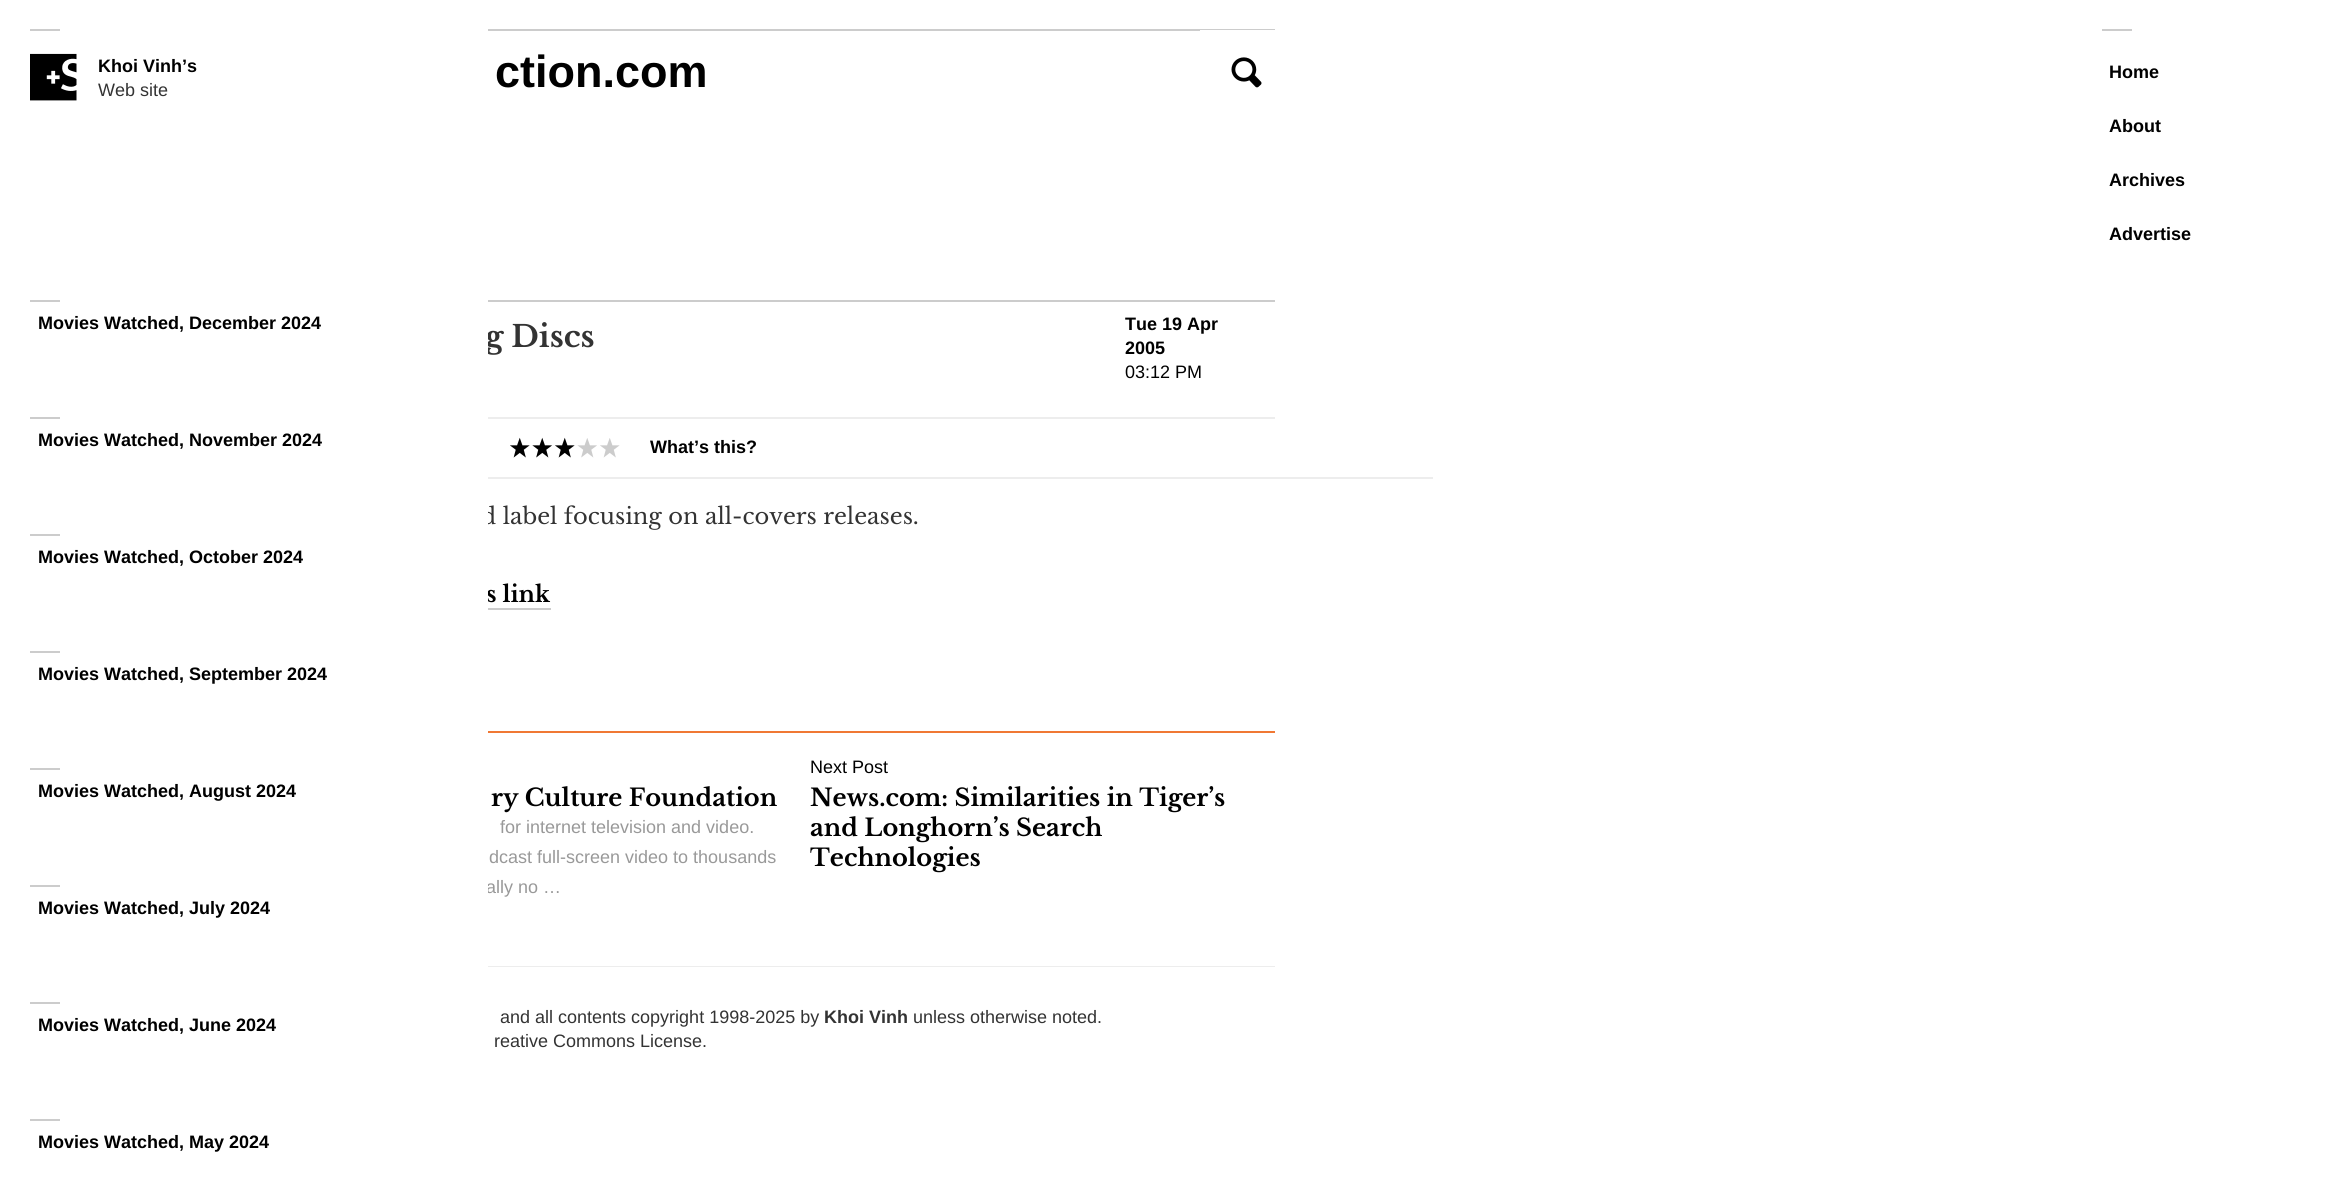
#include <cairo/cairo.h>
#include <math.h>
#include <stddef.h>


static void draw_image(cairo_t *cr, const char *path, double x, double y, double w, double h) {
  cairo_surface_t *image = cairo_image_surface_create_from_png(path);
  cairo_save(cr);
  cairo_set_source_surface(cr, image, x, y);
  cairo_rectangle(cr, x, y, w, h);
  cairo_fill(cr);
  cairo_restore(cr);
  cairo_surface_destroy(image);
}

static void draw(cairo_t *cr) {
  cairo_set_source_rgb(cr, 1, 1, 1);
  cairo_paint(cr);
  cairo_set_source_rgb(cr, 204 / 255.0, 204 / 255.0, 204 / 255.0);
  cairo_rectangle(cr, 30, 29, 30, 2);
  cairo_fill(cr);
  draw_image(cr, "images/1.png", 30, 53, 47, 48);
  cairo_rectangle(cr, 30, 300, 30, 2);
  cairo_fill(cr);
  cairo_rectangle(cr, 30, 417, 30, 2);
  cairo_fill(cr);
  cairo_rectangle(cr, 30, 534, 30, 2);
  cairo_fill(cr);
  cairo_rectangle(cr, 30, 651, 30, 2);
  cairo_fill(cr);
  cairo_rectangle(cr, 30, 768, 30, 2);
  cairo_fill(cr);
  cairo_rectangle(cr, 30, 885, 30, 2);
  cairo_fill(cr);
  cairo_rectangle(cr, 30, 1002, 30, 2);
  cairo_fill(cr);
  cairo_rectangle(cr, 30, 1119, 30, 2);
  cairo_fill(cr);
  cairo_rectangle(cr, 488, 29, 787, 2);
  cairo_fill(cr);
  cairo_set_source_rgb(cr, 1, 1, 1);
  cairo_rectangle(cr, 1200, 30, 75, 1);
  cairo_fill(cr);
  draw_image(cr, "images/2.png", 1231, 57, 31, 31);
  cairo_set_source_rgb(cr, 204 / 255.0, 204 / 255.0, 204 / 255.0);
  cairo_rectangle(cr, 2102, 29, 30, 2);
  cairo_fill(cr);
  cairo_rectangle(cr, 488, 300, 787, 2);
  cairo_fill(cr);
  cairo_set_source_rgb(cr, 237 / 255.0, 237 / 255.0, 237 / 255.0);
  cairo_rectangle(cr, 488, 417, 787, 2);
  cairo_fill(cr);
  cairo_rectangle(cr, 488, 477, 945, 2);
  cairo_fill(cr);
  draw_image(cr, "images/3.png", 510, 437, 65, 21);
  draw_image(cr, "images/4.png", 577, 438, 43, 20);
  cairo_set_source_rgb(cr, 204 / 255.0, 204 / 255.0, 204 / 255.0);
  cairo_rectangle(cr, 488, 608, 63, 2);
  cairo_fill(cr);
  cairo_set_source_rgb(cr, 240 / 255.0, 120 / 255.0, 52 / 255.0);
  cairo_rectangle(cr, 488, 731, 787, 2);
  cairo_fill(cr);
  cairo_set_source_rgb(cr, 237 / 255.0, 237 / 255.0, 237 / 255.0);
  cairo_rectangle(cr, 488, 966, 787, 1);
  cairo_fill(cr);
  cairo_select_font_face(cr, "Liberation Sans", CAIRO_FONT_SLANT_NORMAL, CAIRO_FONT_WEIGHT_BOLD);
  cairo_set_font_size(cr, 18);
  cairo_set_source_rgb(cr, 0, 0, 0);
  cairo_move_to(cr, 98, 72);
  cairo_show_text(cr, "Khoi Vinh’s");
  cairo_select_font_face(cr, "Liberation Sans", CAIRO_FONT_SLANT_NORMAL, CAIRO_FONT_WEIGHT_NORMAL);
  cairo_set_source_rgb(cr, 51 / 255.0, 51 / 255.0, 51 / 255.0);
  cairo_move_to(cr, 98, 96);
  cairo_show_text(cr, "Web site");
  cairo_select_font_face(cr, "Liberation Sans", CAIRO_FONT_SLANT_NORMAL, CAIRO_FONT_WEIGHT_BOLD);
  cairo_set_source_rgb(cr, 0, 0, 0);
  cairo_move_to(cr, 38, 329);
  cairo_show_text(cr, "Movies Watched, December 2024");
  cairo_move_to(cr, 38, 446);
  cairo_show_text(cr, "Movies Watched, November 2024");
  cairo_move_to(cr, 38, 563);
  cairo_show_text(cr, "Movies Watched, October 2024");
  cairo_move_to(cr, 38, 680);
  cairo_show_text(cr, "Movies Watched, September 2024");
  cairo_move_to(cr, 38, 797);
  cairo_show_text(cr, "Movies Watched, August 2024");
  cairo_move_to(cr, 38, 914);
  cairo_show_text(cr, "Movies Watched, July 2024");
  cairo_move_to(cr, 38, 1031);
  cairo_show_text(cr, "Movies Watched, June 2024");
  cairo_move_to(cr, 38, 1148);
  cairo_show_text(cr, "Movies Watched, May 2024");
  cairo_set_font_size(cr, 45);
  cairo_move_to(cr, 495, 87);
  cairo_show_text(cr, "ction.com");
  cairo_set_font_size(cr, 18);
  cairo_move_to(cr, 2109, 78);
  cairo_show_text(cr, "Home");
  cairo_move_to(cr, 2109, 132);
  cairo_show_text(cr, "About");
  cairo_move_to(cr, 2109, 186);
  cairo_show_text(cr, "Archives");
  cairo_move_to(cr, 2109, 240);
  cairo_show_text(cr, "Advertise");
  cairo_select_font_face(cr, "Libre Baskerville", CAIRO_FONT_SLANT_NORMAL, CAIRO_FONT_WEIGHT_BOLD);
  cairo_set_font_size(cr, 30);
  cairo_set_source_rgb(cr, 51 / 255.0, 51 / 255.0, 51 / 255.0);
  cairo_move_to(cr, 485, 347);
  cairo_show_text(cr, "g Discs");
  cairo_select_font_face(cr, "Liberation Sans", CAIRO_FONT_SLANT_NORMAL, CAIRO_FONT_WEIGHT_BOLD);
  cairo_set_font_size(cr, 18);
  cairo_set_source_rgb(cr, 0, 0, 0);
  cairo_move_to(cr, 1125, 330);
  cairo_show_text(cr, "Tue 19 Apr");
  cairo_move_to(cr, 1125, 354);
  cairo_show_text(cr, "2005");
  cairo_select_font_face(cr, "Liberation Sans", CAIRO_FONT_SLANT_NORMAL, CAIRO_FONT_WEIGHT_NORMAL);
  cairo_move_to(cr, 1125, 378);
  cairo_show_text(cr, "03:12 PM");
  cairo_select_font_face(cr, "Liberation Sans", CAIRO_FONT_SLANT_NORMAL, CAIRO_FONT_WEIGHT_BOLD);
  cairo_move_to(cr, 650, 453);
  cairo_show_text(cr, "What’s this?");
  cairo_select_font_face(cr, "Libre Baskerville", CAIRO_FONT_SLANT_NORMAL, CAIRO_FONT_WEIGHT_NORMAL);
  cairo_set_font_size(cr, 22.5);
  cairo_set_source_rgb(cr, 51 / 255.0, 51 / 255.0, 51 / 255.0);
  cairo_move_to(cr, 481, 524);
  cairo_show_text(cr, "d label focusing on all-covers releases.");
  cairo_select_font_face(cr, "Libre Baskerville", CAIRO_FONT_SLANT_NORMAL, CAIRO_FONT_WEIGHT_BOLD);
  cairo_set_source_rgb(cr, 0, 0, 0);
  cairo_move_to(cr, 486, 602);
  cairo_show_text(cr, "s link");
  cairo_set_font_size(cr, 24);
  cairo_move_to(cr, 491, 806);
  cairo_show_text(cr, "ry Culture Foundation");
  cairo_select_font_face(cr, "Liberation Sans", CAIRO_FONT_SLANT_NORMAL, CAIRO_FONT_WEIGHT_NORMAL);
  cairo_set_font_size(cr, 18);
  cairo_set_source_rgb(cr, 153 / 255.0, 153 / 255.0, 153 / 255.0);
  cairo_move_to(cr, 500, 833);
  cairo_show_text(cr, "for internet television and video.");
  cairo_move_to(cr, 489, 863);
  cairo_show_text(cr, "dcast full-screen video to thousands");
  cairo_move_to(cr, 486, 893);
  cairo_show_text(cr, "ally no …");
  cairo_set_source_rgb(cr, 1, 1, 1);
  cairo_rectangle(cr, 481, 333, 7, 560);
  cairo_fill(cr);
  cairo_set_source_rgb(cr, 0, 0, 0);
  cairo_move_to(cr, 810, 773);
  cairo_show_text(cr, "Next Post");
  cairo_select_font_face(cr, "Libre Baskerville", CAIRO_FONT_SLANT_NORMAL, CAIRO_FONT_WEIGHT_BOLD);
  cairo_set_font_size(cr, 24);
  cairo_move_to(cr, 810, 806);
  cairo_show_text(cr, "News.com: Similarities in Tiger’s");
  cairo_move_to(cr, 810, 836);
  cairo_show_text(cr, "and Longhorn’s Search");
  cairo_move_to(cr, 810, 866);
  cairo_show_text(cr, "Technologies");
  cairo_select_font_face(cr, "Liberation Sans", CAIRO_FONT_SLANT_NORMAL, CAIRO_FONT_WEIGHT_NORMAL);
  cairo_set_font_size(cr, 18);
  cairo_set_source_rgb(cr, 51 / 255.0, 51 / 255.0, 51 / 255.0);
  cairo_move_to(cr, 500, 1023);
  cairo_show_text(cr, "and all contents copyright 1998-2025 by");
  cairo_select_font_face(cr, "Liberation Sans", CAIRO_FONT_SLANT_NORMAL, CAIRO_FONT_WEIGHT_BOLD);
  cairo_move_to(cr, 824, 1023);
  cairo_show_text(cr, "Khoi Vinh");
  cairo_select_font_face(cr, "Liberation Sans", CAIRO_FONT_SLANT_NORMAL, CAIRO_FONT_WEIGHT_NORMAL);
  cairo_move_to(cr, 913, 1023);
  cairo_show_text(cr, "unless otherwise noted.");
  cairo_move_to(cr, 494, 1047);
  cairo_show_text(cr, "reative Commons License.");
}

int main(void) {
  cairo_surface_t *surface = cairo_image_surface_create(CAIRO_FORMAT_RGB24, 2345, 1202);
  cairo_t *cr = cairo_create(surface);
  cairo_font_options_t *options = cairo_font_options_create();
  cairo_font_options_set_hint_metrics(options, CAIRO_HINT_METRICS_OFF);
  cairo_font_options_set_hint_style(options, CAIRO_HINT_STYLE_NONE);
  cairo_set_font_options(cr, options);
  cairo_set_miter_limit(cr, 4);
  draw(cr);
  cairo_surface_write_to_png(surface, "out.png");
  cairo_font_options_destroy(options);
  cairo_destroy(cr);
  cairo_surface_destroy(surface);
  return 0;
}
